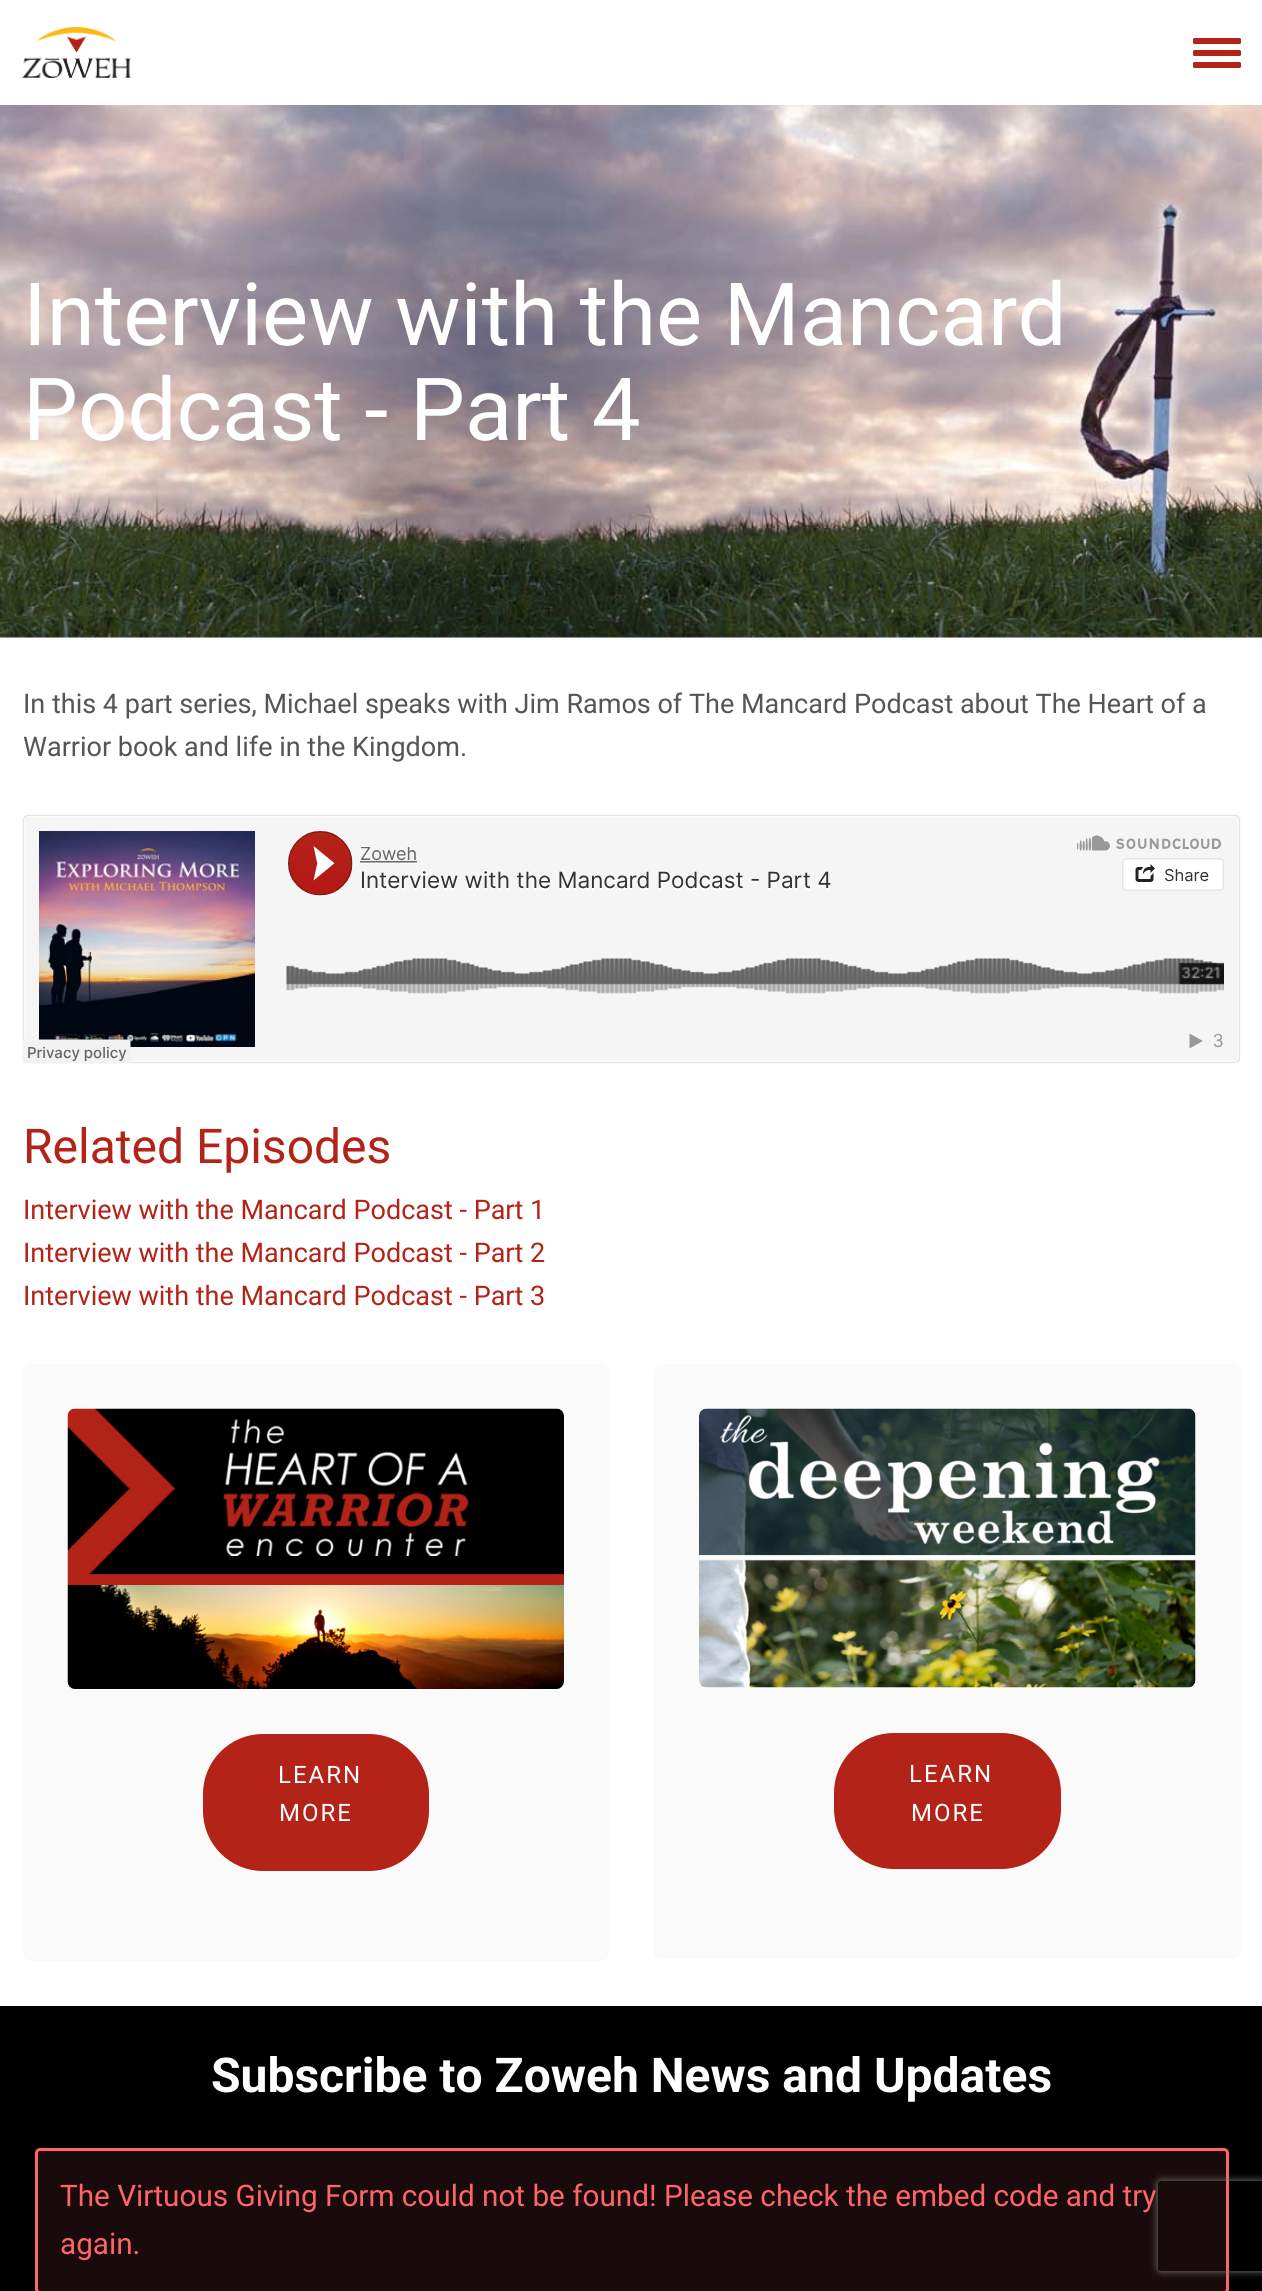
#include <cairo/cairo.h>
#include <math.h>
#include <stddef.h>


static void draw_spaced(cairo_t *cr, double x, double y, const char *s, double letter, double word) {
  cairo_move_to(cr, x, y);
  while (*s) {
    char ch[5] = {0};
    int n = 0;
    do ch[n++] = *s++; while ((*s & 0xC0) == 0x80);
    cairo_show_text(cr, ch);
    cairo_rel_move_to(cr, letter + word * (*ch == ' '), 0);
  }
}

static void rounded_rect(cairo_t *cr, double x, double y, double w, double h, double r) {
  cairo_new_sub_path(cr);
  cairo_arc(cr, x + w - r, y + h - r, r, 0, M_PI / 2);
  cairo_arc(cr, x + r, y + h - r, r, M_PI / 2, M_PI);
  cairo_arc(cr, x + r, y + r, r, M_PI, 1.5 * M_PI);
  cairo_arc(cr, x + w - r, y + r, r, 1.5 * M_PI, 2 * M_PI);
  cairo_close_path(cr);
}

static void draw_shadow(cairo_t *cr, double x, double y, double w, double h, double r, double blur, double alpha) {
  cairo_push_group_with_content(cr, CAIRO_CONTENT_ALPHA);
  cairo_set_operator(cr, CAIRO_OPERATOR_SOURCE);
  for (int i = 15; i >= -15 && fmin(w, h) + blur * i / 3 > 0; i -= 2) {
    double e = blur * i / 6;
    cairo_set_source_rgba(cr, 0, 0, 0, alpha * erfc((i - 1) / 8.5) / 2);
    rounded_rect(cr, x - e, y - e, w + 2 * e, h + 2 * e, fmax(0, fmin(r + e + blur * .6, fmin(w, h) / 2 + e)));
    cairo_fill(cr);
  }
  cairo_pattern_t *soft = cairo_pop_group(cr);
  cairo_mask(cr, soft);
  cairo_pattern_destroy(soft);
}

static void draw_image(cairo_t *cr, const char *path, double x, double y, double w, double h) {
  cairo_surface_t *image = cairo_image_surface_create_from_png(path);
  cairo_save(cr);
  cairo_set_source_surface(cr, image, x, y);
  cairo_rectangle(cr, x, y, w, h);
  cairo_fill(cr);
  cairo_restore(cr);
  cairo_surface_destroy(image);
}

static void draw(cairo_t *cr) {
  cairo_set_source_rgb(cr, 1, 1, 1);
  cairo_paint(cr);
  draw_image(cr, "images/1.png", 22, 27, 109, 51);
  cairo_set_source_rgb(cr, 179 / 255.0, 35 / 255.0, 23 / 255.0);
  rounded_rect(cr, 1193, 50, 48, 6, 1.5);
  cairo_fill(cr);
  rounded_rect(cr, 1193, 38, 48, 6, 1.5);
  cairo_fill(cr);
  rounded_rect(cr, 1193, 62, 48, 6, 1.5);
  cairo_fill(cr);
  draw_image(cr, "images/2.png", 0, 105, 1262, 533);
  draw_image(cr, "images/3.png", 22, 814, 1219, 250);
  cairo_set_source_rgb(cr, 250 / 255.0, 250 / 255.0, 250 / 255.0);
  rounded_rect(cr, 23, 1364, 586, 597, 8);
  cairo_fill(cr);
  draw_image(cr, "images/4.png", 67, 1408, 497, 281);
  cairo_set_source_rgb(cr, 179 / 255.0, 35 / 255.0, 23 / 255.0);
  rounded_rect(cr, 203, 1734, 226, 137, 60);
  cairo_fill(cr);
  cairo_set_source_rgb(cr, 250 / 255.0, 250 / 255.0, 250 / 255.0);
  rounded_rect(cr, 654, 1364, 587, 595, 8);
  cairo_fill(cr);
  draw_image(cr, "images/5.png", 699, 1408, 497, 280);
  cairo_set_source_rgb(cr, 179 / 255.0, 35 / 255.0, 23 / 255.0);
  rounded_rect(cr, 834, 1733, 227, 136, 60);
  cairo_fill(cr);
  cairo_set_source_rgb(cr, 0, 0, 0);
  cairo_rectangle(cr, 0, 2006, 1262, 285);
  cairo_fill(cr);
  cairo_set_source_rgb(cr, 25 / 255.0, 10 / 255.0, 11 / 255.0);
  rounded_rect(cr, 36.5, 2149.5, 1191, 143, 3.5);
  cairo_fill_preserve(cr);
  cairo_set_source_rgb(cr, 254 / 255.0, 101 / 255.0, 105 / 255.0);
  cairo_set_line_width(cr, 3);
  cairo_stroke(cr);
  cairo_save(cr);
  cairo_set_fill_rule(cr, CAIRO_FILL_RULE_EVEN_ODD);
  cairo_new_path(cr);
  cairo_move_to(cr, 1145, 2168);
  cairo_line_to(cr, 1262, 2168);
  cairo_line_to(cr, 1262, 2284);
  cairo_line_to(cr, 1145, 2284);
  cairo_close_path(cr);
  cairo_move_to(cr, 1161, 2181);
  cairo_line_to(cr, 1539, 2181);
  cairo_curve_to(cr, 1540.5, 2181, 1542, 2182.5, 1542, 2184);
  cairo_line_to(cr, 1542, 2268);
  cairo_curve_to(cr, 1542, 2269.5, 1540.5, 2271, 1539, 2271);
  cairo_line_to(cr, 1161, 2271);
  cairo_curve_to(cr, 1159.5, 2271, 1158, 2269.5, 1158, 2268);
  cairo_line_to(cr, 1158, 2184);
  cairo_curve_to(cr, 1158, 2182.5, 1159.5, 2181, 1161, 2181);
  cairo_close_path(cr);
  cairo_clip(cr);
  cairo_set_source_rgb(cr, 128 / 255.0, 128 / 255.0, 128 / 255.0);
  draw_shadow(cr, 1158, 2181, 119, 90, 3, 4, 1);
  cairo_restore(cr);
  cairo_select_font_face(cr, "Roboto", CAIRO_FONT_SLANT_NORMAL, CAIRO_FONT_WEIGHT_NORMAL);
  cairo_set_font_size(cr, 87);
  cairo_set_source_rgb(cr, 1, 1, 1);
  cairo_move_to(cr, 23, 345);
  cairo_show_text(cr, "Interview with the Mancard");
  cairo_move_to(cr, 23, 440);
  cairo_show_text(cr, "Podcast - Part 4");
  cairo_set_font_size(cr, 27);
  cairo_set_source_rgb(cr, 85 / 255.0, 85 / 255.0, 85 / 255.0);
  cairo_move_to(cr, 23, 713);
  cairo_show_text(cr, "In this 4 part series, Michael speaks with Jim Ramos of The Mancard Podcast about The Heart of a");
  cairo_move_to(cr, 23, 756);
  cairo_show_text(cr, "Warrior book and life in the Kingdom.");
  cairo_set_font_size(cr, 48);
  cairo_set_source_rgb(cr, 179 / 255.0, 35 / 255.0, 23 / 255.0);
  cairo_move_to(cr, 23, 1163);
  cairo_show_text(cr, "Related Episodes");
  cairo_set_font_size(cr, 27);
  cairo_move_to(cr, 23, 1219);
  cairo_show_text(cr, "Interview with the Mancard Podcast - Part 1");
  cairo_move_to(cr, 23, 1262);
  cairo_show_text(cr, "Interview with the Mancard Podcast - Part 2");
  cairo_move_to(cr, 23, 1305);
  cairo_show_text(cr, "Interview with the Mancard Podcast - Part 3");
  cairo_set_font_size(cr, 24);
  cairo_set_source_rgb(cr, 1, 1, 1);
  draw_spaced(cr, 278, 1783, "LEARN", 2, 0);
  draw_spaced(cr, 279, 1821, "MORE", 2, 0);
  draw_spaced(cr, 909, 1782, "LEARN", 2, 0);
  draw_spaced(cr, 911, 1821, "MORE", 2, 0);
  cairo_select_font_face(cr, "Roboto", CAIRO_FONT_SLANT_NORMAL, CAIRO_FONT_WEIGHT_BOLD);
  cairo_set_font_size(cr, 48);
  cairo_move_to(cr, 211, 2092);
  cairo_show_text(cr, "Subscribe to Zoweh News and Updates");
  cairo_select_font_face(cr, "Roboto", CAIRO_FONT_SLANT_NORMAL, CAIRO_FONT_WEIGHT_NORMAL);
  cairo_set_font_size(cr, 29.7);
  cairo_set_source_rgb(cr, 254 / 255.0, 101 / 255.0, 105 / 255.0);
  cairo_move_to(cr, 60, 2206);
  cairo_show_text(cr, "The Virtuous Giving Form could not be found! Please check the embed code and try");
  cairo_move_to(cr, 60, 2254);
  cairo_show_text(cr, "again.");
}

int main(void) {
  cairo_surface_t *surface = cairo_image_surface_create(CAIRO_FORMAT_RGB24, 1262, 2291);
  cairo_t *cr = cairo_create(surface);
  cairo_font_options_t *options = cairo_font_options_create();
  cairo_font_options_set_hint_metrics(options, CAIRO_HINT_METRICS_OFF);
  cairo_font_options_set_hint_style(options, CAIRO_HINT_STYLE_NONE);
  cairo_set_font_options(cr, options);
  cairo_set_miter_limit(cr, 4);
  draw(cr);
  cairo_surface_write_to_png(surface, "out.png");
  cairo_font_options_destroy(options);
  cairo_destroy(cr);
  cairo_surface_destroy(surface);
  return 0;
}
